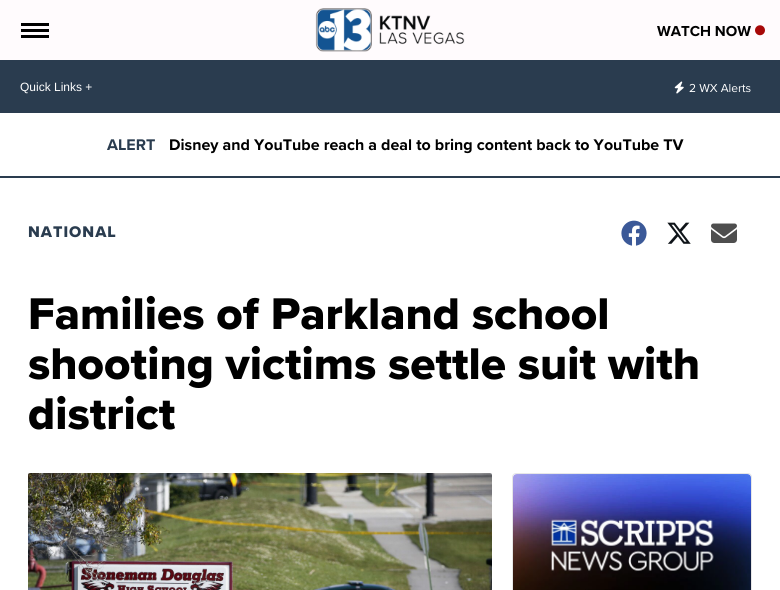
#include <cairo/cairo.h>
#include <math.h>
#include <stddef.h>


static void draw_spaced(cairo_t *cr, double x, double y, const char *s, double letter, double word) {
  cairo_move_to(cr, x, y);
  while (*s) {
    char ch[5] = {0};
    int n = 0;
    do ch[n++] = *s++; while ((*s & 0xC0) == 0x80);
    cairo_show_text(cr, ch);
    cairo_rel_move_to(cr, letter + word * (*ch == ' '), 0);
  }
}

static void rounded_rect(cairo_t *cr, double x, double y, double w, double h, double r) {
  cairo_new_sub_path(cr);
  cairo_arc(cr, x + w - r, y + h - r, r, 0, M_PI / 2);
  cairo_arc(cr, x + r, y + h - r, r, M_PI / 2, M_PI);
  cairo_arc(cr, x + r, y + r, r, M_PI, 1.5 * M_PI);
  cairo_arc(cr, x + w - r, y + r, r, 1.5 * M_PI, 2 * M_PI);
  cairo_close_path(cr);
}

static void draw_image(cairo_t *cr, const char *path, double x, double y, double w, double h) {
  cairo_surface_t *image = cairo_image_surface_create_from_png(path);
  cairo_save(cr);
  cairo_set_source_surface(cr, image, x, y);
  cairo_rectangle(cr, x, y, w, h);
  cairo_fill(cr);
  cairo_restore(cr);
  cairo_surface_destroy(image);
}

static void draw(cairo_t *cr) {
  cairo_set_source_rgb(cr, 1, 1, 1);
  cairo_paint(cr);
  cairo_set_source_rgb(cr, 1, 251 / 255.0, 253 / 255.0);
  cairo_rectangle(cr, 0, 0, 780, 60);
  cairo_fill(cr);
  cairo_set_source_rgb(cr, 0, 0, 0);
  cairo_rectangle(cr, 21, 23, 28, 3);
  cairo_fill(cr);
  cairo_rectangle(cr, 21, 29, 28, 3);
  cairo_fill(cr);
  cairo_rectangle(cr, 21, 35, 28, 3);
  cairo_fill(cr);
  draw_image(cr, "images/1.png", 315, 8, 150, 44);
  draw_image(cr, "images/2.png", 755, 25, 10, 11);
  cairo_set_source_rgb(cr, 42 / 255.0, 60 / 255.0, 79 / 255.0);
  cairo_rectangle(cr, 0, 60, 780, 53);
  cairo_fill(cr);
  draw_image(cr, "images/3.png", 674, 81, 10, 13);
  cairo_rectangle(cr, 0, 176, 780, 2);
  cairo_fill(cr);
  draw_image(cr, "images/4.png", 621, 220, 26, 26);
  draw_image(cr, "images/5.png", 667, 222, 24, 22);
  draw_image(cr, "images/6.png", 711, 223, 26, 20);
  draw_image(cr, "images/7.png", 28, 473, 464, 117);
  rounded_rect(cr, 512.5, 473.5, 239, 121, 3.5);
  cairo_set_source_rgb(cr, 231 / 255.0, 231 / 255.0, 231 / 255.0);
  cairo_set_line_width(cr, 1);
  cairo_stroke(cr);
  draw_image(cr, "images/8.png", 513, 474, 238, 116);
  cairo_select_font_face(cr, "Proxima Nova", CAIRO_FONT_SLANT_NORMAL, CAIRO_FONT_WEIGHT_BOLD);
  cairo_set_font_size(cr, 15);
  cairo_set_source_rgb(cr, 0, 0, 0);
  cairo_move_to(cr, 657, 36);
  cairo_show_text(cr, "WATCH NOW");
  cairo_select_font_face(cr, "Liberation Sans", CAIRO_FONT_SLANT_NORMAL, CAIRO_FONT_WEIGHT_NORMAL);
  cairo_set_font_size(cr, 12);
  cairo_set_source_rgb(cr, 1, 1, 1);
  cairo_move_to(cr, 20, 91);
  cairo_show_text(cr, "Quick Links +");
  cairo_select_font_face(cr, "Proxima Nova", CAIRO_FONT_SLANT_NORMAL, CAIRO_FONT_WEIGHT_NORMAL);
  cairo_move_to(cr, 689, 92);
  cairo_show_text(cr, "2 WX Alerts");
  cairo_select_font_face(cr, "Proxima Nova", CAIRO_FONT_SLANT_NORMAL, CAIRO_FONT_WEIGHT_BOLD);
  cairo_set_font_size(cr, 16);
  cairo_set_source_rgb(cr, 42 / 255.0, 60 / 255.0, 79 / 255.0);
  cairo_move_to(cr, 107, 150);
  cairo_show_text(cr, "ALERT");
  cairo_set_source_rgb(cr, 0, 0, 0);
  cairo_move_to(cr, 169, 150);
  cairo_show_text(cr, "Disney and YouTube reach a deal to bring content back to YouTube TV");
  cairo_select_font_face(cr, "Proxima Nova ExtraBold", CAIRO_FONT_SLANT_NORMAL, CAIRO_FONT_WEIGHT_NORMAL);
  cairo_set_source_rgb(cr, 42 / 255.0, 60 / 255.0, 79 / 255.0);
  draw_spaced(cr, 28, 237, "NATIONAL", 1, 0);
  cairo_set_font_size(cr, 46);
  cairo_set_source_rgb(cr, 0, 0, 0);
  cairo_move_to(cr, 28, 329);
  cairo_show_text(cr, "Families of Parkland school");
  cairo_move_to(cr, 28, 379);
  cairo_show_text(cr, "shooting victims settle suit with");
  cairo_move_to(cr, 28, 429);
  cairo_show_text(cr, "district");
}

int main(void) {
  cairo_surface_t *surface = cairo_image_surface_create(CAIRO_FORMAT_RGB24, 780, 590);
  cairo_t *cr = cairo_create(surface);
  cairo_font_options_t *options = cairo_font_options_create();
  cairo_font_options_set_hint_metrics(options, CAIRO_HINT_METRICS_OFF);
  cairo_font_options_set_hint_style(options, CAIRO_HINT_STYLE_NONE);
  cairo_set_font_options(cr, options);
  cairo_set_miter_limit(cr, 4);
  draw(cr);
  cairo_surface_write_to_png(surface, "out.png");
  cairo_font_options_destroy(options);
  cairo_destroy(cr);
  cairo_surface_destroy(surface);
  return 0;
}
